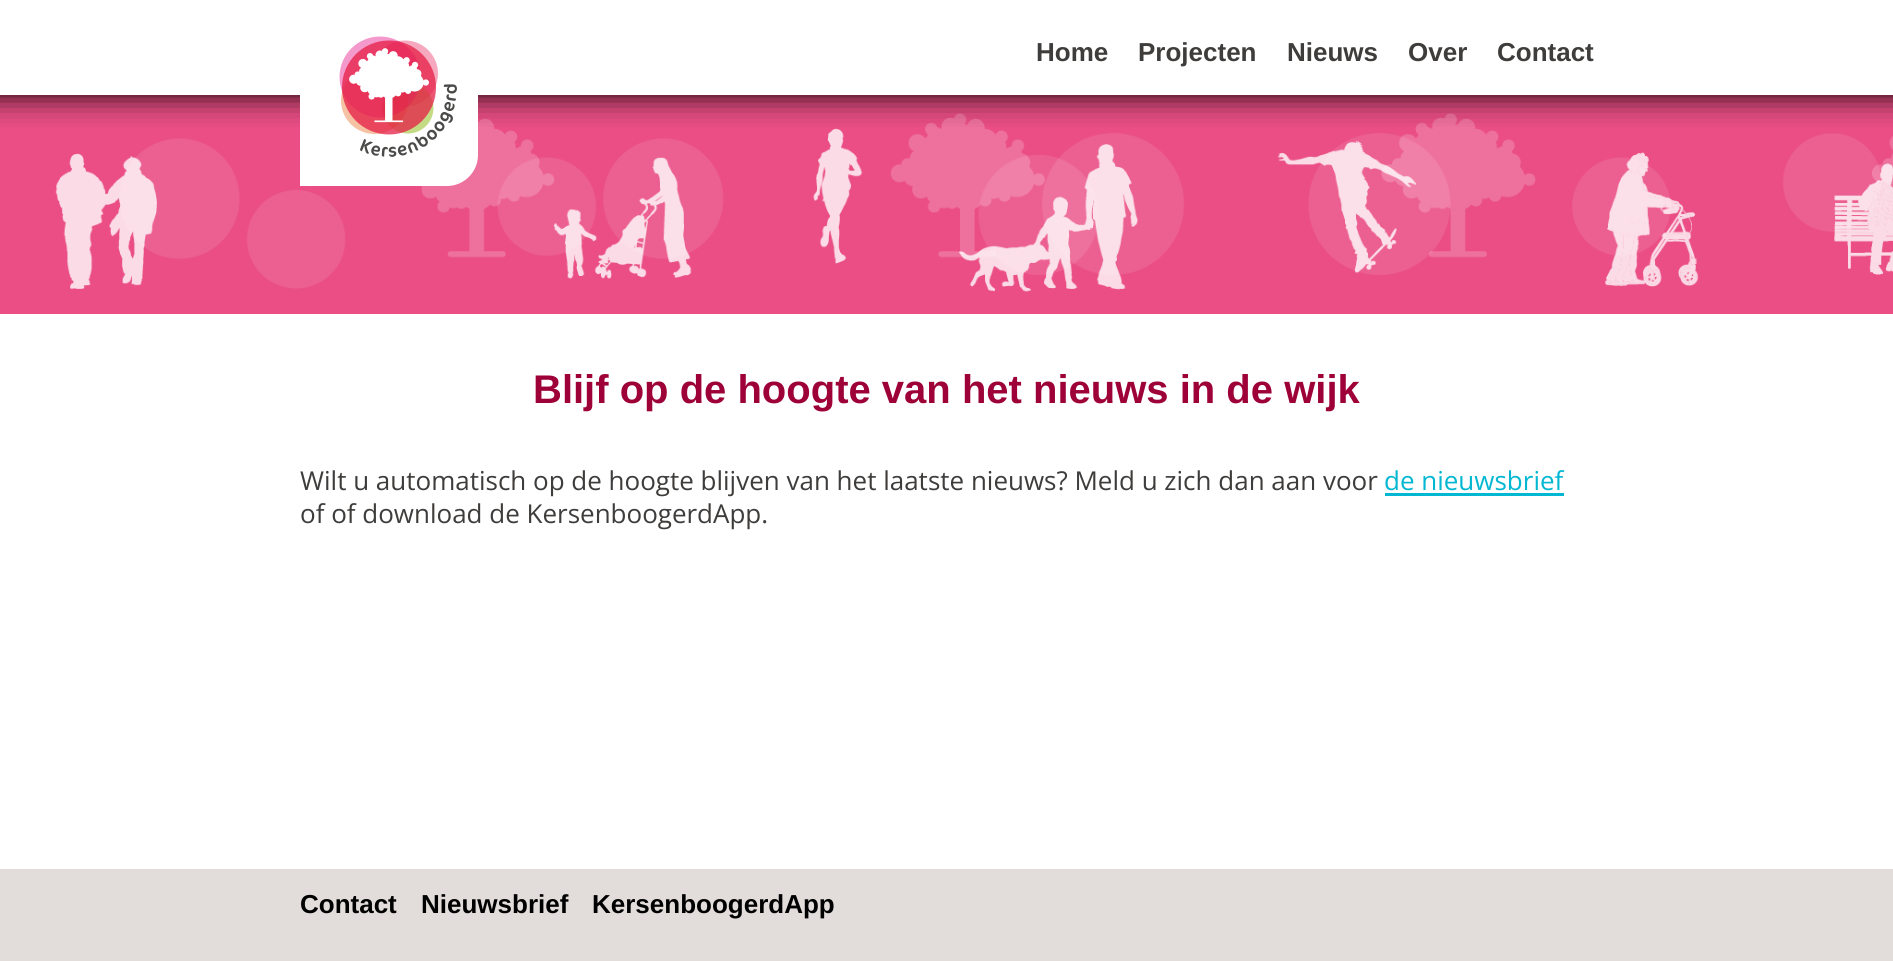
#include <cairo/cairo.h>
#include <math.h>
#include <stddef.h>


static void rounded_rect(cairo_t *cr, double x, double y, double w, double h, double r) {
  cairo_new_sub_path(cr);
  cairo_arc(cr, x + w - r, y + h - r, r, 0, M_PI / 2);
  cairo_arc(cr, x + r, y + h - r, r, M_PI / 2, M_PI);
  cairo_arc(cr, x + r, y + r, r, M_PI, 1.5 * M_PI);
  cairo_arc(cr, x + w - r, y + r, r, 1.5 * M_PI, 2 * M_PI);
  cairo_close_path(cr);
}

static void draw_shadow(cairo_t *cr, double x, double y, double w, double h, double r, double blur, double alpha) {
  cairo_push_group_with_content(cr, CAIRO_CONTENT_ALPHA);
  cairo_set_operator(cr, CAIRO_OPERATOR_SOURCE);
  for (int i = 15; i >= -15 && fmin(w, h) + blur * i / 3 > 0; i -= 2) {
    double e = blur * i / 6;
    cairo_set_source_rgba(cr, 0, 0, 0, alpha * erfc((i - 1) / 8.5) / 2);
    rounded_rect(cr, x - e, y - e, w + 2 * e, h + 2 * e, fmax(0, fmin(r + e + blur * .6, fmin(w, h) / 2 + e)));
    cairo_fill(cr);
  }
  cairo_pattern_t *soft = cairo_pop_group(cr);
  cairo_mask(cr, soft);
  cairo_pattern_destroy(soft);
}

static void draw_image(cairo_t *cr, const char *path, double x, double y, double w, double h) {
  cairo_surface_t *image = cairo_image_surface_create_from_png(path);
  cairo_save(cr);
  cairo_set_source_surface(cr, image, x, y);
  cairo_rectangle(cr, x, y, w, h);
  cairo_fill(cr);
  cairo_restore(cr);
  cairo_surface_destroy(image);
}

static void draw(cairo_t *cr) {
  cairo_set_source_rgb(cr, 1, 1, 1);
  cairo_paint(cr);
  cairo_set_source_rgb(cr, 234 / 255.0, 78 / 255.0, 132 / 255.0);
  cairo_rectangle(cr, 0, 95, 1893, 219);
  cairo_fill(cr);
  draw_image(cr, "images/2.png", 55, 113, 1838, 179);
  cairo_save(cr);
  cairo_rectangle(cr, 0, 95, 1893, 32);
  cairo_clip(cr);
  cairo_set_source_rgb(cr, 0, 0, 0);
  draw_shadow(cr, -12, -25, 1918, 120, 0, 15.5, 1);
  cairo_restore(cr);
  cairo_set_source_rgb(cr, 1, 1, 1);
  cairo_new_path(cr);
  cairo_move_to(cr, 300, 0);
  cairo_line_to(cr, 478, 0);
  cairo_line_to(cr, 478, 155);
  cairo_curve_to(cr, 478, 172, 464, 186, 447, 186);
  cairo_line_to(cr, 300, 186);
  cairo_close_path(cr);
  cairo_fill(cr);
  draw_image(cr, "images/1.png", 339, 36, 118, 121);
  cairo_set_source_rgb(cr, 2 / 255.0, 183 / 255.0, 209 / 255.0);
  cairo_rectangle(cr, 1385, 493, 179, 3);
  cairo_fill(cr);
  cairo_set_source_rgb(cr, 226 / 255.0, 221 / 255.0, 219 / 255.0);
  cairo_rectangle(cr, 0, 869, 1893, 92);
  cairo_fill(cr);
  cairo_select_font_face(cr, "Liberation Sans", CAIRO_FONT_SLANT_NORMAL, CAIRO_FONT_WEIGHT_BOLD);
  cairo_set_font_size(cr, 26);
  cairo_set_source_rgb(cr, 63 / 255.0, 61 / 255.0, 59 / 255.0);
  cairo_move_to(cr, 1036, 61);
  cairo_show_text(cr, "Home");
  cairo_move_to(cr, 1138, 61);
  cairo_show_text(cr, "Projecten");
  cairo_move_to(cr, 1287, 61);
  cairo_show_text(cr, "Nieuws");
  cairo_move_to(cr, 1408, 61);
  cairo_show_text(cr, "Over");
  cairo_move_to(cr, 1497, 61);
  cairo_show_text(cr, "Contact");
  cairo_set_font_size(cr, 40);
  cairo_set_source_rgb(cr, 157 / 255.0, 1 / 255.0, 56 / 255.0);
  cairo_move_to(cr, 533, 403);
  cairo_show_text(cr, "Blijf op de hoogte van het nieuws in de wijk");
  cairo_select_font_face(cr, "Open Sans", CAIRO_FONT_SLANT_NORMAL, CAIRO_FONT_WEIGHT_NORMAL);
  cairo_set_font_size(cr, 26);
  cairo_set_source_rgb(cr, 63 / 255.0, 61 / 255.0, 59 / 255.0);
  cairo_move_to(cr, 300, 490);
  cairo_show_text(cr, "Wilt u automatisch op de hoogte blijven van het laatste nieuws? Meld u zich dan aan voor");
  cairo_set_source_rgb(cr, 2 / 255.0, 183 / 255.0, 209 / 255.0);
  cairo_move_to(cr, 1384, 490);
  cairo_show_text(cr, "de nieuwsbrief");
  cairo_set_source_rgb(cr, 63 / 255.0, 61 / 255.0, 59 / 255.0);
  cairo_move_to(cr, 300, 523);
  cairo_show_text(cr, "of of download de KersenboogerdApp.");
  cairo_select_font_face(cr, "Liberation Sans", CAIRO_FONT_SLANT_NORMAL, CAIRO_FONT_WEIGHT_BOLD);
  cairo_set_source_rgb(cr, 0, 0, 0);
  cairo_move_to(cr, 300, 913);
  cairo_show_text(cr, "Contact");
  cairo_move_to(cr, 421, 913);
  cairo_show_text(cr, "Nieuwsbrief");
  cairo_move_to(cr, 592, 913);
  cairo_show_text(cr, "KersenboogerdApp");
}

int main(void) {
  cairo_surface_t *surface = cairo_image_surface_create(CAIRO_FORMAT_RGB24, 1893, 961);
  cairo_t *cr = cairo_create(surface);
  cairo_font_options_t *options = cairo_font_options_create();
  cairo_font_options_set_hint_metrics(options, CAIRO_HINT_METRICS_OFF);
  cairo_font_options_set_hint_style(options, CAIRO_HINT_STYLE_NONE);
  cairo_set_font_options(cr, options);
  cairo_set_miter_limit(cr, 4);
  draw(cr);
  cairo_surface_write_to_png(surface, "out.png");
  cairo_font_options_destroy(options);
  cairo_destroy(cr);
  cairo_surface_destroy(surface);
  return 0;
}
